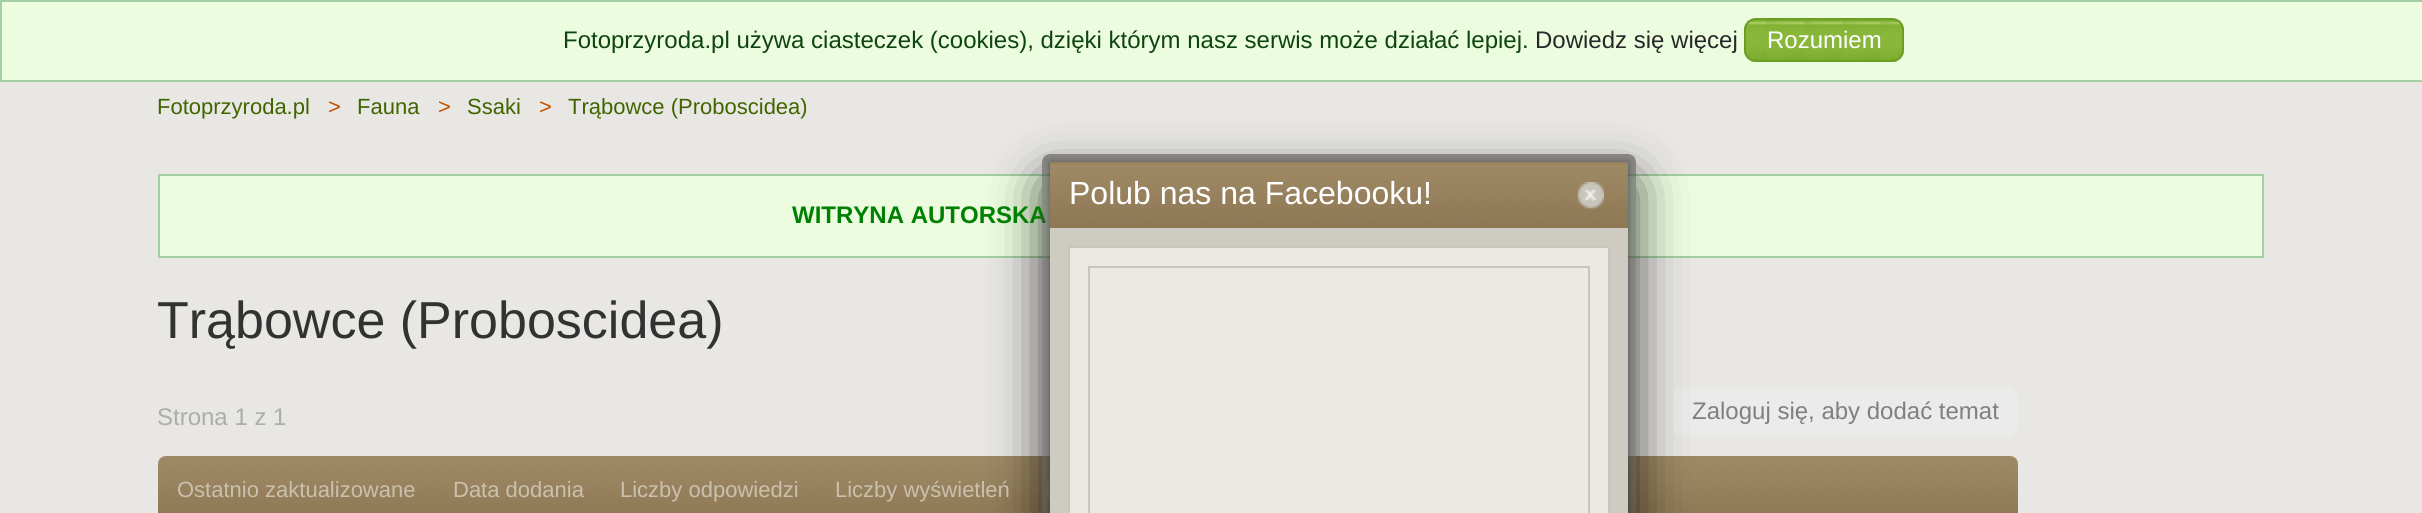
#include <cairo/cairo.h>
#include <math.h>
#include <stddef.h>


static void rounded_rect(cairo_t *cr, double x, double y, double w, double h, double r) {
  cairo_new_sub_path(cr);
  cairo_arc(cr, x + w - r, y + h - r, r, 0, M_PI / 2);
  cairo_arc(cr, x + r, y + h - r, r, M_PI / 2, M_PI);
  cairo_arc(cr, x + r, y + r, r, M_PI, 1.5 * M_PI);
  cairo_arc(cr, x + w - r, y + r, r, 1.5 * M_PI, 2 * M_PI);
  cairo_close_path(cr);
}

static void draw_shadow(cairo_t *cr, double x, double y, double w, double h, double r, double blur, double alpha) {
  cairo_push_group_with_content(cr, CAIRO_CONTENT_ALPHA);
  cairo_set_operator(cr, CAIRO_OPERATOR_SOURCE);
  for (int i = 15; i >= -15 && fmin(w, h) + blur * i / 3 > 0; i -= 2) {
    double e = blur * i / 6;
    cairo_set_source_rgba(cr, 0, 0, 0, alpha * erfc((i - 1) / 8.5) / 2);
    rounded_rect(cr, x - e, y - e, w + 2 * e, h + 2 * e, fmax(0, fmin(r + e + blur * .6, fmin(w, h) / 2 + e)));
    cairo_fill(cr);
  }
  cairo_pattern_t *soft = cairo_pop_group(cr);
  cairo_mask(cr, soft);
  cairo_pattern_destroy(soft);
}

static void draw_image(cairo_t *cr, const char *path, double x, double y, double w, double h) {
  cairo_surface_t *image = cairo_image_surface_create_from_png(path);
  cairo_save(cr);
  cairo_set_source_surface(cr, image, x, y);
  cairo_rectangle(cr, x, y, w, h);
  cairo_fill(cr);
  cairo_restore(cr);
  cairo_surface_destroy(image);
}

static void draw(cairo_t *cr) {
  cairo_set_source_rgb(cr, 232 / 255.0, 231 / 255.0, 228 / 255.0);
  cairo_paint(cr);
  cairo_set_source_rgb(cr, 235 / 255.0, 252 / 255.0, 223 / 255.0);
  cairo_rectangle(cr, 1, 1, 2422, 80);
  cairo_fill_preserve(cr);
  cairo_set_source_rgb(cr, 164 / 255.0, 207 / 255.0, 164 / 255.0);
  cairo_stroke(cr);
  draw_image(cr, "images/1.png", 1744, 20, 160, 42);
  rounded_rect(cr, 1745, 19, 158, 42, 11);
  cairo_set_source_rgb(cr, 106 / 255.0, 159 / 255.0, 34 / 255.0);
  cairo_stroke(cr);
  cairo_set_source_rgb(cr, 235 / 255.0, 252 / 255.0, 223 / 255.0);
  cairo_rectangle(cr, 159, 175, 2104, 82);
  cairo_fill_preserve(cr);
  cairo_set_source_rgb(cr, 164 / 255.0, 207 / 255.0, 164 / 255.0);
  cairo_stroke(cr);
  cairo_set_source_rgb(cr, 235 / 255.0, 235 / 255.0, 235 / 255.0);
  rounded_rect(cr, 1672, 388, 346, 48, 12);
  cairo_fill(cr);
  draw_image(cr, "images/4.png", 158, 456, 1860, 57);
  cairo_set_source_rgb(cr, 163 / 255.0, 142 / 255.0, 108 / 255.0);
  cairo_new_path(cr);
  cairo_move_to(cr, 1066, 470);
  cairo_line_to(cr, 1150, 470);
  cairo_line_to(cr, 1150, 510);
  cairo_line_to(cr, 1066, 510);
  cairo_curve_to(cr, 1055, 510, 1046, 501, 1046, 490);
  cairo_curve_to(cr, 1046, 479, 1055, 470, 1066, 470);
  cairo_close_path(cr);
  cairo_fill(cr);
  cairo_save(cr);
  cairo_set_fill_rule(cr, CAIRO_FILL_RULE_EVEN_ODD);
  cairo_new_path(cr);
  cairo_move_to(cr, 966, 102);
  cairo_line_to(cr, 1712, 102);
  cairo_line_to(cr, 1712, 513);
  cairo_line_to(cr, 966, 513);
  cairo_close_path(cr);
  cairo_move_to(cr, 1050, 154);
  cairo_line_to(cr, 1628, 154);
  cairo_curve_to(cr, 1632.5, 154, 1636, 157.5, 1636, 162);
  cairo_line_to(cr, 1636, 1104);
  cairo_curve_to(cr, 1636, 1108.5, 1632.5, 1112, 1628, 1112);
  cairo_line_to(cr, 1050, 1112);
  cairo_curve_to(cr, 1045.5, 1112, 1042, 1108.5, 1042, 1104);
  cairo_line_to(cr, 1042, 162);
  cairo_curve_to(cr, 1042, 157.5, 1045.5, 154, 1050, 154);
  cairo_close_path(cr);
  cairo_clip(cr);
  cairo_set_source_rgb(cr, 0, 0, 0);
  draw_shadow(cr, 1042, 178, 594, 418, 8, 25, 0.7);
  cairo_restore(cr);
  cairo_select_font_face(cr, "Liberation Sans", CAIRO_FONT_SLANT_NORMAL, CAIRO_FONT_WEIGHT_NORMAL);
  cairo_set_font_size(cr, 24);
  cairo_set_source_rgb(cr, 14 / 255.0, 68 / 255.0, 14 / 255.0);
  cairo_move_to(cr, 563, 48);
  cairo_show_text(cr, "Fotoprzyroda.pl używa ciasteczek (cookies), dzięki którym nasz serwis może działać lepiej.");
  cairo_set_source_rgb(cr, 40 / 255.0, 40 / 255.0, 40 / 255.0);
  cairo_move_to(cr, 1535, 48);
  cairo_show_text(cr, "Dowiedz się więcej");
  cairo_set_source_rgb(cr, 1, 1, 1);
  cairo_move_to(cr, 1767, 48);
  cairo_show_text(cr, "Rozumiem");
  cairo_set_font_size(cr, 22);
  cairo_set_source_rgb(cr, 64 / 255.0, 101 / 255.0, 0);
  cairo_move_to(cr, 157, 114);
  cairo_show_text(cr, "Fotoprzyroda.pl");
  cairo_set_source_rgb(cr, 199 / 255.0, 80 / 255.0, 0);
  cairo_move_to(cr, 328, 114);
  cairo_show_text(cr, ">");
  cairo_set_source_rgb(cr, 64 / 255.0, 101 / 255.0, 0);
  cairo_move_to(cr, 357, 114);
  cairo_show_text(cr, "Fauna");
  cairo_set_source_rgb(cr, 199 / 255.0, 80 / 255.0, 0);
  cairo_move_to(cr, 438, 114);
  cairo_show_text(cr, ">");
  cairo_set_source_rgb(cr, 64 / 255.0, 101 / 255.0, 0);
  cairo_move_to(cr, 467, 114);
  cairo_show_text(cr, "Ssaki");
  cairo_set_source_rgb(cr, 199 / 255.0, 80 / 255.0, 0);
  cairo_move_to(cr, 539, 114);
  cairo_show_text(cr, ">");
  cairo_set_source_rgb(cr, 64 / 255.0, 101 / 255.0, 0);
  cairo_move_to(cr, 568, 114);
  cairo_show_text(cr, "Trąbowce (Proboscidea)");
  cairo_select_font_face(cr, "Liberation Sans", CAIRO_FONT_SLANT_NORMAL, CAIRO_FONT_WEIGHT_BOLD);
  cairo_set_font_size(cr, 24);
  cairo_set_source_rgb(cr, 0, 128 / 255.0, 0);
  cairo_move_to(cr, 792, 223);
  cairo_show_text(cr, "WITRYNA AUTORSKA");
  cairo_set_source_rgba(cr, 70 / 255.0, 70 / 255.0, 70 / 255.0, 0.6);
  rounded_rect(cr, 1042, 154, 594, 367, 8);
  cairo_fill(cr);
  cairo_set_source_rgb(cr, 0, 0, 0);
  draw_shadow(cr, 1050, 162, 578, 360, 0, 3, 0.4);
  draw_image(cr, "images/2.png", 1050, 164, 578, 64);
  draw_image(cr, "images/3.png", 1577, 182, 27, 27);
  cairo_set_source_rgb(cr, 206 / 255.0, 203 / 255.0, 194 / 255.0);
  cairo_rectangle(cr, 1050, 228, 578, 285);
  cairo_fill(cr);
  cairo_set_source_rgb(cr, 236 / 255.0, 233 / 255.0, 226 / 255.0);
  cairo_rectangle(cr, 1069, 247, 540, 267);
  cairo_fill_preserve(cr);
  cairo_set_source_rgb(cr, 200 / 255.0, 197 / 255.0, 188 / 255.0);
  cairo_stroke(cr);
  cairo_rectangle(cr, 1089, 267, 500, 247);
  cairo_stroke(cr);
  cairo_select_font_face(cr, "Liberation Sans", CAIRO_FONT_SLANT_NORMAL, CAIRO_FONT_WEIGHT_NORMAL);
  cairo_set_font_size(cr, 32);
  cairo_set_source_rgb(cr, 1, 1, 1);
  cairo_move_to(cr, 1069, 204);
  cairo_show_text(cr, "Polub nas na Facebooku!");
  cairo_set_source_rgb(cr, 152 / 255.0, 130 / 255.0, 94 / 255.0);
  cairo_rectangle(cr, 1050, 162, 578, 2);
  cairo_fill(cr);
  cairo_set_font_size(cr, 52);
  cairo_set_source_rgb(cr, 50 / 255.0, 50 / 255.0, 50 / 255.0);
  cairo_move_to(cr, 157, 338);
  cairo_show_text(cr, "Trąbowce (Proboscidea)");
  cairo_set_font_size(cr, 24);
  cairo_set_source_rgb(cr, 172 / 255.0, 172 / 255.0, 172 / 255.0);
  cairo_move_to(cr, 157, 425);
  cairo_show_text(cr, "Strona 1 z 1");
  cairo_set_source_rgb(cr, 127 / 255.0, 127 / 255.0, 127 / 255.0);
  cairo_move_to(cr, 1692, 419);
  cairo_show_text(cr, "Zaloguj się, aby dodać temat");
  cairo_set_font_size(cr, 22);
  cairo_set_source_rgb(cr, 203 / 255.0, 192 / 255.0, 174 / 255.0);
  cairo_move_to(cr, 177, 497);
  cairo_show_text(cr, "Ostatnio zaktualizowane");
  cairo_move_to(cr, 453, 497);
  cairo_show_text(cr, "Data dodania");
  cairo_move_to(cr, 620, 497);
  cairo_show_text(cr, "Liczby odpowiedzi");
  cairo_move_to(cr, 835, 497);
  cairo_show_text(cr, "Liczby wyświetleń");
}

int main(void) {
  cairo_surface_t *surface = cairo_image_surface_create(CAIRO_FORMAT_RGB24, 2422, 513);
  cairo_t *cr = cairo_create(surface);
  cairo_font_options_t *options = cairo_font_options_create();
  cairo_font_options_set_hint_metrics(options, CAIRO_HINT_METRICS_OFF);
  cairo_font_options_set_hint_style(options, CAIRO_HINT_STYLE_NONE);
  cairo_set_font_options(cr, options);
  cairo_set_miter_limit(cr, 4);
  draw(cr);
  cairo_surface_write_to_png(surface, "out.png");
  cairo_font_options_destroy(options);
  cairo_destroy(cr);
  cairo_surface_destroy(surface);
  return 0;
}
